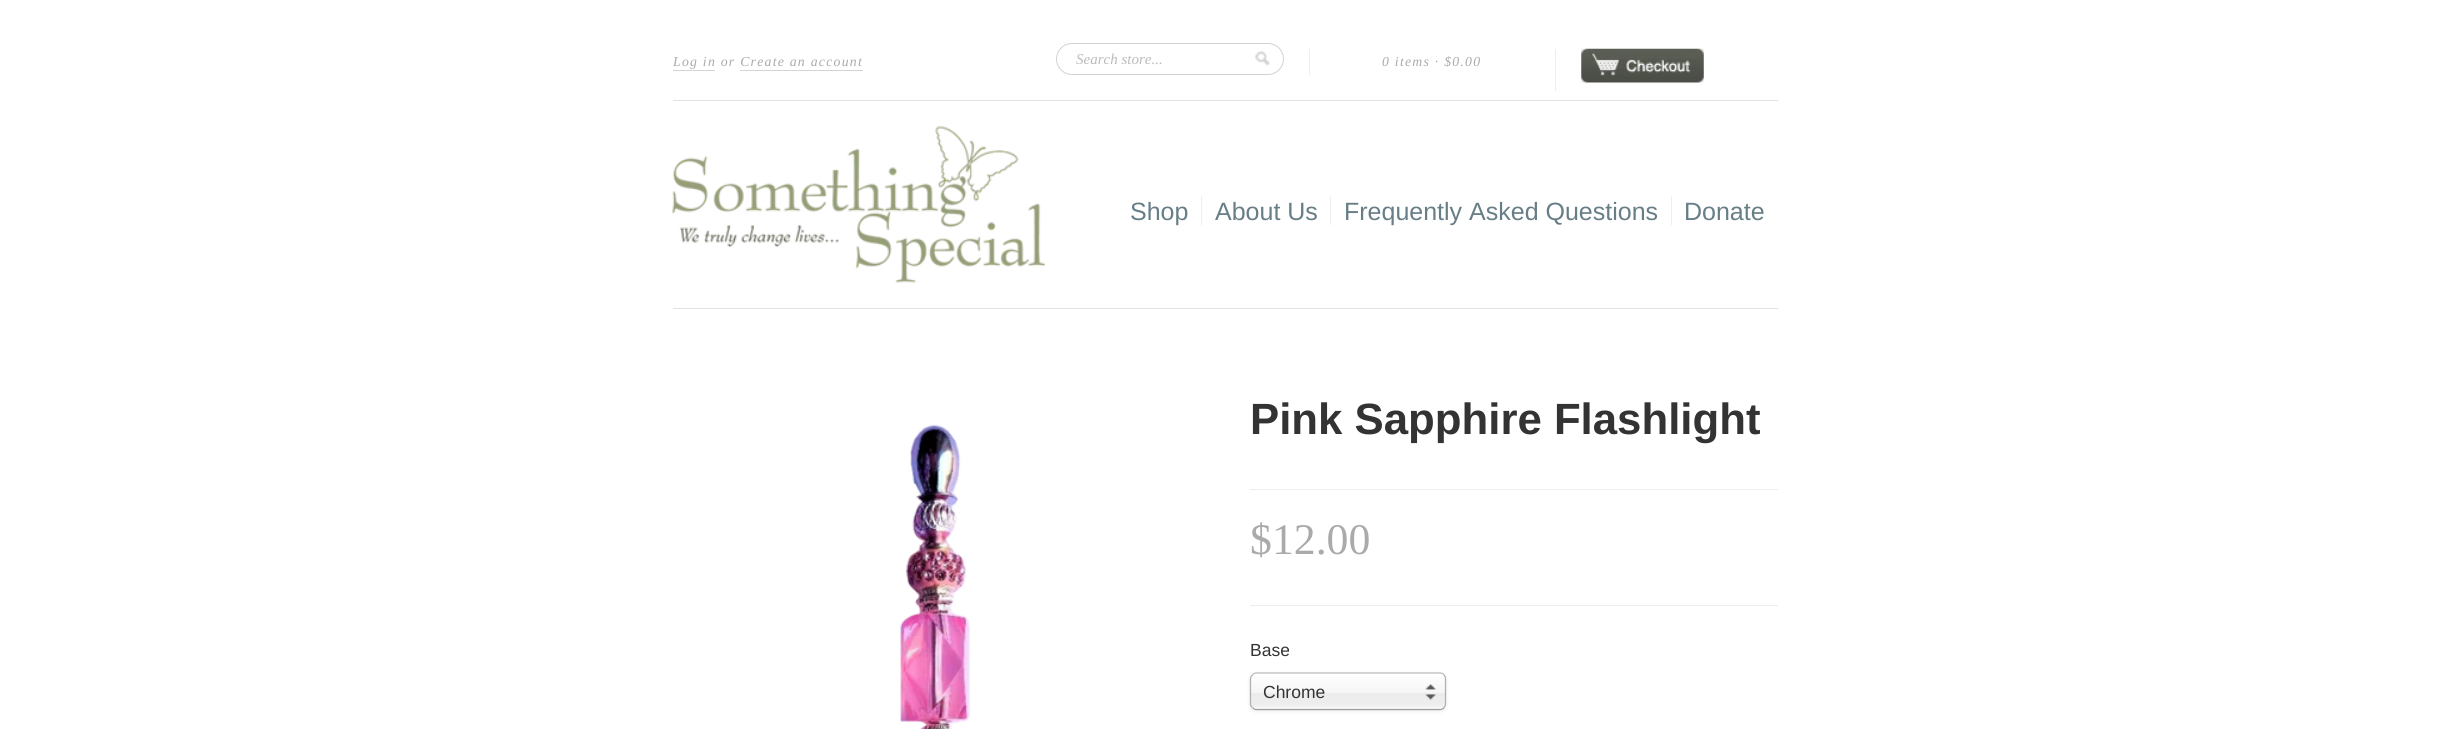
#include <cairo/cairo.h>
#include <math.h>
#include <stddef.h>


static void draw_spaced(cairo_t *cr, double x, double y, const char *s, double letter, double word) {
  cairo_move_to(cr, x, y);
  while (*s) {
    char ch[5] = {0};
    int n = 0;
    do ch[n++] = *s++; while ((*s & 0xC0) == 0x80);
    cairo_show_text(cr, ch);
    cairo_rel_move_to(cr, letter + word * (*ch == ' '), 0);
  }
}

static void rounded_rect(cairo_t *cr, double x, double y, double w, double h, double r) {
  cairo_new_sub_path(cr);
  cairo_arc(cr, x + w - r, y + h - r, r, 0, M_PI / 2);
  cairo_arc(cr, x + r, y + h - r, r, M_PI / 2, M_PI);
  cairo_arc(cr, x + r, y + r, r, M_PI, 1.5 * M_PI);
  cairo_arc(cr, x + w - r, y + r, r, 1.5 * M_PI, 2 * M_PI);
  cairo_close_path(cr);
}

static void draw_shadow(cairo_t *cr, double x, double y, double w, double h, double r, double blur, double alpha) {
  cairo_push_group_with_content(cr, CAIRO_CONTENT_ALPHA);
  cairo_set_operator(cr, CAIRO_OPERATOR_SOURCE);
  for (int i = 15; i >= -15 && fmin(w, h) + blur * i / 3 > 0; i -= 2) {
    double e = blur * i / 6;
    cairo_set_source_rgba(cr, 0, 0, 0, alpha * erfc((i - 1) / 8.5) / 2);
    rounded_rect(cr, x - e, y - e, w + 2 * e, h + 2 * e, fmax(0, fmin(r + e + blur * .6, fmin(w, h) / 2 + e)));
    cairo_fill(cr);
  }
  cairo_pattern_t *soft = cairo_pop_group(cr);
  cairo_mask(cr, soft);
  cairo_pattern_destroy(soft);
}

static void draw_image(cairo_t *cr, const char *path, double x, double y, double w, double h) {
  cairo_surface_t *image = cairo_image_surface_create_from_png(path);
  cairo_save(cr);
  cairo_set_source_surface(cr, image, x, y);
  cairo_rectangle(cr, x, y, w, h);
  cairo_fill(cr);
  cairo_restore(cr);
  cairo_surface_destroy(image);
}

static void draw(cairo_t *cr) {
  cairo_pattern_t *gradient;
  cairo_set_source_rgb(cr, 1, 1, 1);
  cairo_paint(cr);
  cairo_set_source_rgb(cr, 226 / 255.0, 226 / 255.0, 226 / 255.0);
  cairo_rectangle(cr, 673, 308, 1105, 1);
  cairo_fill(cr);
  cairo_rectangle(cr, 673, 100, 1105, 1);
  cairo_fill(cr);
  cairo_set_source_rgb(cr, 212 / 255.0, 212 / 255.0, 212 / 255.0);
  cairo_rectangle(cr, 673, 70, 42, 1);
  cairo_fill(cr);
  cairo_rectangle(cr, 740, 70, 123, 1);
  cairo_fill(cr);
  rounded_rect(cr, 1056.5, 43.5, 227, 31, 15.5);
  cairo_set_source_rgb(cr, 210 / 255.0, 210 / 255.0, 210 / 255.0);
  cairo_set_line_width(cr, 1);
  cairo_stroke(cr);
  draw_image(cr, "images/1.png", 1255, 51, 15, 15);
  cairo_set_source_rgb(cr, 238 / 255.0, 238 / 255.0, 238 / 255.0);
  cairo_rectangle(cr, 1309, 49, 1, 26);
  cairo_fill(cr);
  cairo_rectangle(cr, 1555, 49, 1, 42);
  cairo_fill(cr);
  draw_image(cr, "images/2.png", 1581, 48, 123, 35);
  draw_image(cr, "images/3.png", 672, 126, 373, 157);
  cairo_rectangle(cr, 1201, 196, 1, 29);
  cairo_fill(cr);
  cairo_rectangle(cr, 1330, 196, 1, 29);
  cairo_fill(cr);
  cairo_rectangle(cr, 1671, 196, 1, 29);
  cairo_fill(cr);
  draw_image(cr, "images/4.png", 900, 424, 71, 305);
  cairo_rectangle(cr, 1250, 489, 528, 1);
  cairo_fill(cr);
  cairo_rectangle(cr, 1250, 605, 528, 1);
  cairo_fill(cr);
  cairo_set_source_rgb(cr, 0, 0, 0);
  draw_shadow(cr, 1250, 674, 196, 37, 6, 2, 0.1);
  cairo_save(cr);
  rounded_rect(cr, 1250, 673, 196, 37, 6);
  cairo_clip(cr);
  gradient = cairo_pattern_create_linear(1348, 639, 1348, 674);
  cairo_pattern_add_color_stop_rgba(gradient, 0, 1, 1, 1, 1);
  cairo_pattern_add_color_stop_rgba(gradient, 0.53, 245 / 255.0, 245 / 255.0, 245 / 255.0, 1);
  cairo_pattern_add_color_stop_rgba(gradient, 0.54, 236 / 255.0, 236 / 255.0, 236 / 255.0, 1);
  cairo_pattern_add_color_stop_rgba(gradient, 0.91, 238 / 255.0, 238 / 255.0, 238 / 255.0, 1);
  cairo_pattern_add_color_stop_rgba(gradient, 1, 1, 1, 1, 1);
  cairo_set_source(cr, gradient);
  cairo_pattern_destroy(gradient);
  cairo_rectangle(cr, 1250, 673, 196, 1);
  cairo_fill(cr);
  gradient = cairo_pattern_create_linear(1348, 674, 1348, 709);
  cairo_pattern_add_color_stop_rgba(gradient, 0, 1, 1, 1, 1);
  cairo_pattern_add_color_stop_rgba(gradient, 0.53, 245 / 255.0, 245 / 255.0, 245 / 255.0, 1);
  cairo_pattern_add_color_stop_rgba(gradient, 0.54, 236 / 255.0, 236 / 255.0, 236 / 255.0, 1);
  cairo_pattern_add_color_stop_rgba(gradient, 0.91, 238 / 255.0, 238 / 255.0, 238 / 255.0, 1);
  cairo_pattern_add_color_stop_rgba(gradient, 1, 1, 1, 1, 1);
  cairo_set_source(cr, gradient);
  cairo_pattern_destroy(gradient);
  cairo_rectangle(cr, 1250, 674, 196, 35);
  cairo_fill(cr);
  gradient = cairo_pattern_create_linear(1348, 709, 1348, 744);
  cairo_pattern_add_color_stop_rgba(gradient, 0, 1, 1, 1, 1);
  cairo_pattern_add_color_stop_rgba(gradient, 0.53, 245 / 255.0, 245 / 255.0, 245 / 255.0, 1);
  cairo_pattern_add_color_stop_rgba(gradient, 0.54, 236 / 255.0, 236 / 255.0, 236 / 255.0, 1);
  cairo_pattern_add_color_stop_rgba(gradient, 0.91, 238 / 255.0, 238 / 255.0, 238 / 255.0, 1);
  cairo_pattern_add_color_stop_rgba(gradient, 1, 1, 1, 1, 1);
  cairo_set_source(cr, gradient);
  cairo_pattern_destroy(gradient);
  cairo_rectangle(cr, 1250, 709, 196, 1);
  cairo_fill(cr);
  cairo_restore(cr);
  cairo_new_path(cr);
  cairo_move_to(cr, 1252.5, 675);
  cairo_curve_to(cr, 1253.5, 673.5, 1255, 673, 1256, 673);
  cairo_line_to(cr, 1440, 673);
  cairo_curve_to(cr, 1441.5, 673, 1443, 673.5, 1444, 675);
  cairo_set_source_rgb(cr, 185 / 255.0, 185 / 255.0, 185 / 255.0);
  cairo_set_line_width(cr, 1.2);
  cairo_stroke(cr);
  cairo_new_path(cr);
  cairo_move_to(cr, 1444, 675);
  cairo_curve_to(cr, 1445, 676, 1445.5, 677.5, 1445.5, 679);
  cairo_line_to(cr, 1445.5, 704);
  cairo_curve_to(cr, 1445.5, 705, 1445, 706.5, 1444, 707.5);
  cairo_set_source_rgb(cr, 174 / 255.0, 174 / 255.0, 174 / 255.0);
  cairo_stroke(cr);
  cairo_new_path(cr);
  cairo_move_to(cr, 1444, 707.5);
  cairo_curve_to(cr, 1443, 709, 1441.5, 709.5, 1440, 709.5);
  cairo_line_to(cr, 1256, 709.5);
  cairo_curve_to(cr, 1255, 709.5, 1253.5, 709, 1252.5, 707.5);
  cairo_set_source_rgb(cr, 155 / 255.0, 155 / 255.0, 155 / 255.0);
  cairo_stroke(cr);
  cairo_new_path(cr);
  cairo_move_to(cr, 1252.5, 707.5);
  cairo_curve_to(cr, 1251, 706.5, 1250.5, 705, 1250.5, 704);
  cairo_line_to(cr, 1250.5, 679);
  cairo_curve_to(cr, 1250.5, 677.5, 1251, 676, 1252.5, 675);
  cairo_set_source_rgb(cr, 174 / 255.0, 174 / 255.0, 174 / 255.0);
  cairo_stroke(cr);
  draw_image(cr, "images/5.png", 1425, 684, 12, 16);
  cairo_select_font_face(cr, "Liberation Serif", CAIRO_FONT_SLANT_ITALIC, CAIRO_FONT_WEIGHT_NORMAL);
  cairo_set_font_size(cr, 13.75);
  cairo_set_source_rgb(cr, 169 / 255.0, 170 / 255.0, 170 / 255.0);
  draw_spaced(cr, 673, 66, "Log in or Create an account", 1.25, 0);
  cairo_set_font_size(cr, 15);
  cairo_set_source_rgb(cr, 187 / 255.0, 187 / 255.0, 187 / 255.0);
  cairo_move_to(cr, 1076, 64);
  cairo_show_text(cr, "Search store...");
  cairo_set_font_size(cr, 13.75);
  cairo_set_source_rgb(cr, 169 / 255.0, 170 / 255.0, 170 / 255.0);
  draw_spaced(cr, 1382, 66, "0 items · $0.00", 1.25, 0);
  cairo_select_font_face(cr, "Liberation Sans", CAIRO_FONT_SLANT_NORMAL, CAIRO_FONT_WEIGHT_NORMAL);
  cairo_set_font_size(cr, 25);
  cairo_set_source_rgb(cr, 103 / 255.0, 126 / 255.0, 135 / 255.0);
  cairo_move_to(cr, 1130, 220);
  cairo_show_text(cr, "Shop");
  cairo_move_to(cr, 1215, 220);
  cairo_show_text(cr, "About Us");
  cairo_move_to(cr, 1344, 220);
  cairo_show_text(cr, "Frequently Asked Questions");
  cairo_move_to(cr, 1684, 220);
  cairo_show_text(cr, "Donate");
  cairo_select_font_face(cr, "Liberation Sans", CAIRO_FONT_SLANT_NORMAL, CAIRO_FONT_WEIGHT_BOLD);
  cairo_set_font_size(cr, 43.75);
  cairo_set_source_rgb(cr, 51 / 255.0, 51 / 255.0, 51 / 255.0);
  cairo_move_to(cr, 1250, 434);
  cairo_show_text(cr, "Pink Sapphire Flashlight");
  cairo_select_font_face(cr, "Liberation Serif", CAIRO_FONT_SLANT_NORMAL, CAIRO_FONT_WEIGHT_NORMAL);
  cairo_set_source_rgb(cr, 169 / 255.0, 170 / 255.0, 170 / 255.0);
  cairo_move_to(cr, 1250, 554);
  cairo_show_text(cr, "$12.00");
  cairo_select_font_face(cr, "Liberation Sans", CAIRO_FONT_SLANT_NORMAL, CAIRO_FONT_WEIGHT_NORMAL);
  cairo_set_font_size(cr, 17.5);
  cairo_set_source_rgb(cr, 51 / 255.0, 51 / 255.0, 51 / 255.0);
  cairo_move_to(cr, 1250, 656);
  cairo_show_text(cr, "Base");
  cairo_move_to(cr, 1263, 698);
  cairo_show_text(cr, "Chrome");
}

int main(void) {
  cairo_surface_t *surface = cairo_image_surface_create(CAIRO_FORMAT_RGB24, 2449, 729);
  cairo_t *cr = cairo_create(surface);
  cairo_font_options_t *options = cairo_font_options_create();
  cairo_font_options_set_hint_metrics(options, CAIRO_HINT_METRICS_OFF);
  cairo_font_options_set_hint_style(options, CAIRO_HINT_STYLE_NONE);
  cairo_set_font_options(cr, options);
  cairo_set_miter_limit(cr, 4);
  draw(cr);
  cairo_surface_write_to_png(surface, "out.png");
  cairo_font_options_destroy(options);
  cairo_destroy(cr);
  cairo_surface_destroy(surface);
  return 0;
}
